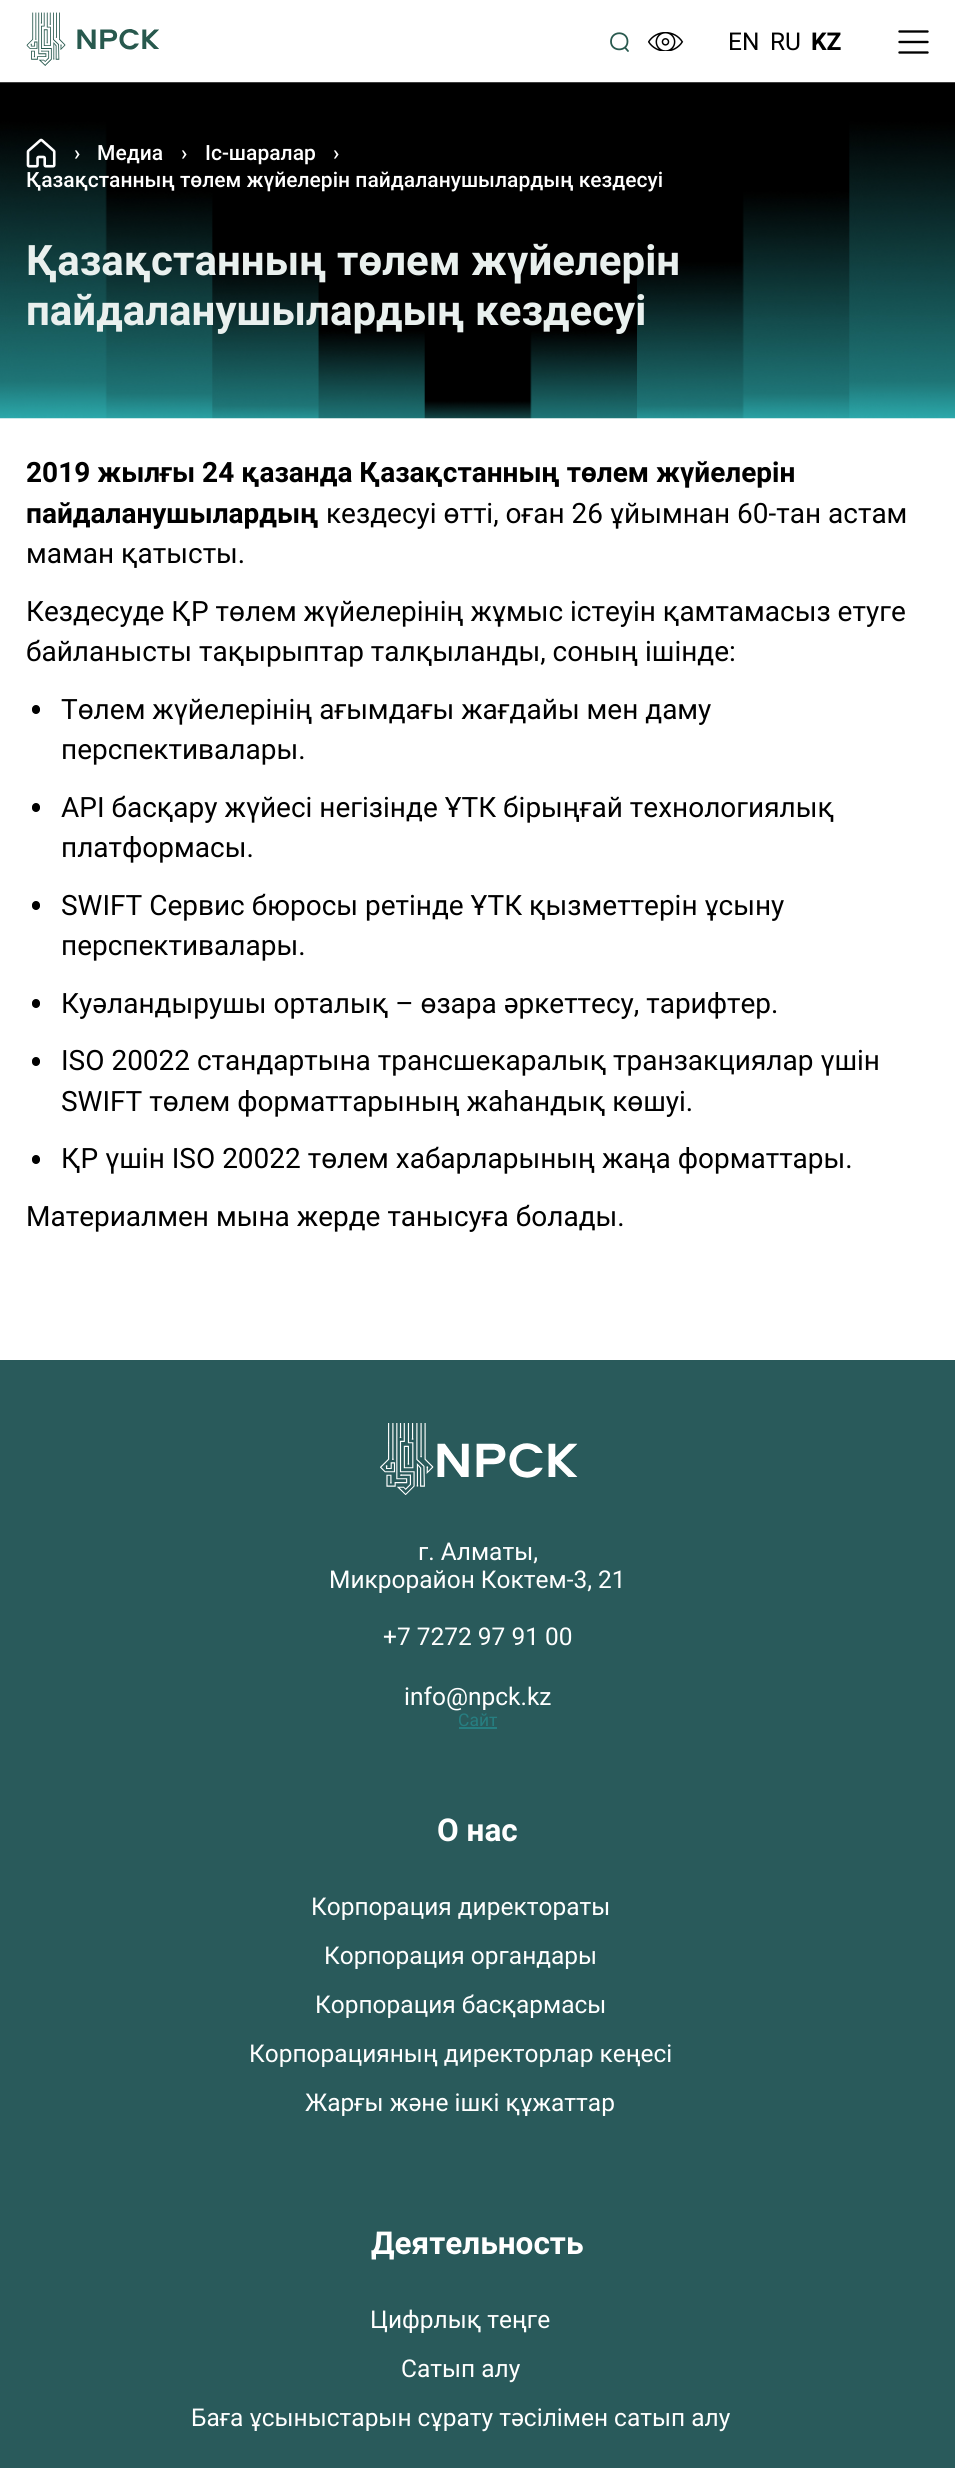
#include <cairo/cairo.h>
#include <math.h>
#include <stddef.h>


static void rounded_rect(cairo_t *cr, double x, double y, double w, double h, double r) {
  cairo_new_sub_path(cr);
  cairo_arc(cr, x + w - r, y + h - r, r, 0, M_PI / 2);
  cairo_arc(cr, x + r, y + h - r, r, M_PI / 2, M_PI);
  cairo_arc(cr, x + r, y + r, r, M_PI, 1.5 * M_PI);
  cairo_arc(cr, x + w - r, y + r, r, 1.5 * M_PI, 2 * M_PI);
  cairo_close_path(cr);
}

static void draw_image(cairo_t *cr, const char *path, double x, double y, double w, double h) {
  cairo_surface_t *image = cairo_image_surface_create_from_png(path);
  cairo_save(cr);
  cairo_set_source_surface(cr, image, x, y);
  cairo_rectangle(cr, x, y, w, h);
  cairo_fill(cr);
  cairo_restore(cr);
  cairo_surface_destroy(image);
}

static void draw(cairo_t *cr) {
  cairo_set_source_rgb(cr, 1, 1, 1);
  cairo_paint(cr);
  draw_image(cr, "images/1.png", 26, 12, 133, 54);
  cairo_new_path(cr);
  cairo_move_to(cr, 625, 47.5);
  cairo_line_to(cr, 628, 51);
  cairo_move_to(cr, 627.5, 41.5);
  cairo_curve_to(cr, 627.5, 52, 611, 52, 611, 41.5);
  cairo_curve_to(cr, 611, 30.5, 627.5, 30.5, 627.5, 41.5);
  cairo_close_path(cr);
  cairo_set_source_rgb(cr, 40 / 255.0, 89 / 255.0, 78 / 255.0);
  cairo_set_line_width(cr, 1.8);
  cairo_set_line_cap(cr, CAIRO_LINE_CAP_ROUND);
  cairo_set_line_join(cr, CAIRO_LINE_JOIN_ROUND);
  cairo_stroke(cr);
  draw_image(cr, "images/2.png", 648, 32, 36, 19);
  cairo_new_path(cr);
  cairo_move_to(cr, 899.5, 42);
  cairo_line_to(cr, 927.5, 42);
  cairo_move_to(cr, 899.5, 31.5);
  cairo_line_to(cr, 927.5, 31.5);
  cairo_move_to(cr, 899.5, 52.5);
  cairo_line_to(cr, 927.5, 52.5);
  cairo_set_source_rgb(cr, 0, 0, 0);
  cairo_set_line_width(cr, 2.4);
  cairo_stroke(cr);
  draw_image(cr, "images/3.png", 0, 82, 955, 337);
  draw_image(cr, "images/4.png", 26, 138, 30, 30);
  rounded_rect(cr, 32, 705, 8, 9, 4);
  cairo_fill(cr);
  rounded_rect(cr, 32, 803, 8, 9, 4);
  cairo_fill(cr);
  rounded_rect(cr, 32, 901, 8, 9, 4);
  cairo_fill(cr);
  rounded_rect(cr, 32, 999, 8, 9, 4);
  cairo_fill(cr);
  rounded_rect(cr, 32, 1057, 8, 9, 4);
  cairo_fill(cr);
  rounded_rect(cr, 32, 1155, 8, 9, 4);
  cairo_fill(cr);
  cairo_set_source_rgb(cr, 41 / 255.0, 90 / 255.0, 91 / 255.0);
  cairo_rectangle(cr, 0, 1360, 955, 1108);
  cairo_fill(cr);
  draw_image(cr, "images/5.png", 380, 1423, 198, 72);
  cairo_set_source_rgb(cr, 38 / 255.0, 126 / 255.0, 129 / 255.0);
  cairo_rectangle(cr, 459, 1727, 38, 2);
  cairo_fill(cr);
  cairo_select_font_face(cr, "Roboto", CAIRO_FONT_SLANT_NORMAL, CAIRO_FONT_WEIGHT_NORMAL);
  cairo_set_font_size(cr, 24.5);
  cairo_set_source_rgb(cr, 0, 0, 0);
  cairo_move_to(cr, 728, 50);
  cairo_show_text(cr, "EN");
  cairo_move_to(cr, 770, 50);
  cairo_show_text(cr, "RU");
  cairo_select_font_face(cr, "Roboto", CAIRO_FONT_SLANT_NORMAL, CAIRO_FONT_WEIGHT_BOLD);
  cairo_move_to(cr, 811, 50);
  cairo_show_text(cr, "KZ");
  cairo_select_font_face(cr, "Roboto Medium", CAIRO_FONT_SLANT_NORMAL, CAIRO_FONT_WEIGHT_NORMAL);
  cairo_set_font_size(cr, 21);
  cairo_set_source_rgb(cr, 1, 1, 1);
  cairo_move_to(cr, 74, 160);
  cairo_show_text(cr, "›");
  cairo_move_to(cr, 97, 160);
  cairo_show_text(cr, "Медиа");
  cairo_move_to(cr, 181, 160);
  cairo_show_text(cr, "›");
  cairo_move_to(cr, 205, 160);
  cairo_show_text(cr, "Іс-шаралар");
  cairo_move_to(cr, 333, 160);
  cairo_show_text(cr, "›");
  cairo_move_to(cr, 26, 187);
  cairo_show_text(cr, "Қазақстанның төлем жүйелерін пайдаланушылардың кездесуі");
  cairo_select_font_face(cr, "Roboto", CAIRO_FONT_SLANT_NORMAL, CAIRO_FONT_WEIGHT_BOLD);
  cairo_set_font_size(cr, 42);
  cairo_set_source_rgb(cr, 233 / 255.0, 240 / 255.0, 238 / 255.0);
  cairo_move_to(cr, 26, 275);
  cairo_show_text(cr, "Қазақстанның төлем жүйелерін");
  cairo_move_to(cr, 26, 325);
  cairo_show_text(cr, "пайдаланушылардың кездесуі");
  cairo_set_font_size(cr, 28);
  cairo_set_source_rgb(cr, 0, 0, 0);
  cairo_move_to(cr, 26, 482);
  cairo_show_text(cr, "2019 жылғы 24 қазанда Қазақстанның төлем жүйелерін");
  cairo_move_to(cr, 26, 523);
  cairo_show_text(cr, "пайдаланушылардың");
  cairo_select_font_face(cr, "Roboto", CAIRO_FONT_SLANT_NORMAL, CAIRO_FONT_WEIGHT_NORMAL);
  cairo_move_to(cr, 326, 523);
  cairo_show_text(cr, "кездесуі өтті, оған 26 ұйымнан 60-тан астам");
  cairo_move_to(cr, 26, 563);
  cairo_show_text(cr, "маман қатысты.");
  cairo_move_to(cr, 26, 621);
  cairo_show_text(cr, "Кездесуде ҚР төлем жүйелерінің жұмыс істеуін қамтамасыз етуге");
  cairo_move_to(cr, 26, 661);
  cairo_show_text(cr, "байланысты тақырыптар талқыланды, соның ішінде:");
  cairo_move_to(cr, 61, 719);
  cairo_show_text(cr, "Төлем жүйелерінің ағымдағы жағдайы мен даму");
  cairo_move_to(cr, 61, 759);
  cairo_show_text(cr, "перспективалары.");
  cairo_move_to(cr, 61, 817);
  cairo_show_text(cr, "API басқару жүйесі негізінде ҰТК бірыңғай технологиялық");
  cairo_move_to(cr, 61, 857);
  cairo_show_text(cr, "платформасы.");
  cairo_move_to(cr, 61, 915);
  cairo_show_text(cr, "SWIFT Сервис бюросы ретінде ҰТК қызметтерін ұсыну");
  cairo_move_to(cr, 61, 955);
  cairo_show_text(cr, "перспективалары.");
  cairo_move_to(cr, 61, 1013);
  cairo_show_text(cr, "Куәландырушы орталық – өзара әркеттесу, тарифтер.");
  cairo_move_to(cr, 61, 1070);
  cairo_show_text(cr, "ISO 20022 стандартына трансшекаралық транзакциялар үшін");
  cairo_move_to(cr, 61, 1111);
  cairo_show_text(cr, "SWIFT төлем форматтарының жаһандық көшуі.");
  cairo_move_to(cr, 61, 1168);
  cairo_show_text(cr, "ҚР үшін ISO 20022 төлем хабарларының жаңа форматтары.");
  cairo_move_to(cr, 26, 1226);
  cairo_show_text(cr, "Материалмен мына жерде танысуға болады.");
  cairo_set_font_size(cr, 24.5);
  cairo_set_source_rgb(cr, 1, 1, 1);
  cairo_move_to(cr, 418, 1560);
  cairo_show_text(cr, "г. Алматы,");
  cairo_move_to(cr, 329, 1588);
  cairo_show_text(cr, "Микрорайон Коктем-3, 21");
  cairo_move_to(cr, 383, 1645);
  cairo_show_text(cr, "+7 7272 97 91 00");
  cairo_move_to(cr, 404, 1705);
  cairo_show_text(cr, "info@npck.kz");
  cairo_set_font_size(cr, 17.5);
  cairo_set_source_rgb(cr, 38 / 255.0, 126 / 255.0, 129 / 255.0);
  cairo_move_to(cr, 458, 1726);
  cairo_show_text(cr, "Сайт");
  cairo_select_font_face(cr, "Roboto", CAIRO_FONT_SLANT_NORMAL, CAIRO_FONT_WEIGHT_BOLD);
  cairo_set_font_size(cr, 31.5);
  cairo_set_source_rgb(cr, 1, 1, 1);
  cairo_move_to(cr, 437, 1841);
  cairo_show_text(cr, "О нас");
  cairo_select_font_face(cr, "Roboto", CAIRO_FONT_SLANT_NORMAL, CAIRO_FONT_WEIGHT_NORMAL);
  cairo_set_font_size(cr, 24.5);
  cairo_move_to(cr, 311, 1915);
  cairo_show_text(cr, "Корпорация директораты");
  cairo_move_to(cr, 324, 1964);
  cairo_show_text(cr, "Корпорация органдары");
  cairo_move_to(cr, 315, 2013);
  cairo_show_text(cr, "Корпорация басқармасы");
  cairo_move_to(cr, 249, 2062);
  cairo_show_text(cr, "Корпорацияның директорлар кеңесі");
  cairo_move_to(cr, 305, 2111);
  cairo_show_text(cr, "Жарғы және ішкі құжаттар");
  cairo_select_font_face(cr, "Roboto", CAIRO_FONT_SLANT_NORMAL, CAIRO_FONT_WEIGHT_BOLD);
  cairo_set_font_size(cr, 31.5);
  cairo_move_to(cr, 371, 2254);
  cairo_show_text(cr, "Деятельность");
  cairo_select_font_face(cr, "Roboto", CAIRO_FONT_SLANT_NORMAL, CAIRO_FONT_WEIGHT_NORMAL);
  cairo_set_font_size(cr, 24.5);
  cairo_move_to(cr, 370, 2328);
  cairo_show_text(cr, "Цифрлық теңге");
  cairo_move_to(cr, 401, 2377);
  cairo_show_text(cr, "Сатып алу");
  cairo_move_to(cr, 191, 2426);
  cairo_show_text(cr, "Баға ұсыныстарын сұрату тәсілімен сатып алу");
}

int main(void) {
  cairo_surface_t *surface = cairo_image_surface_create(CAIRO_FORMAT_RGB24, 955, 2468);
  cairo_t *cr = cairo_create(surface);
  cairo_font_options_t *options = cairo_font_options_create();
  cairo_font_options_set_hint_metrics(options, CAIRO_HINT_METRICS_OFF);
  cairo_font_options_set_hint_style(options, CAIRO_HINT_STYLE_NONE);
  cairo_set_font_options(cr, options);
  cairo_set_miter_limit(cr, 4);
  draw(cr);
  cairo_surface_write_to_png(surface, "out.png");
  cairo_font_options_destroy(options);
  cairo_destroy(cr);
  cairo_surface_destroy(surface);
  return 0;
}
